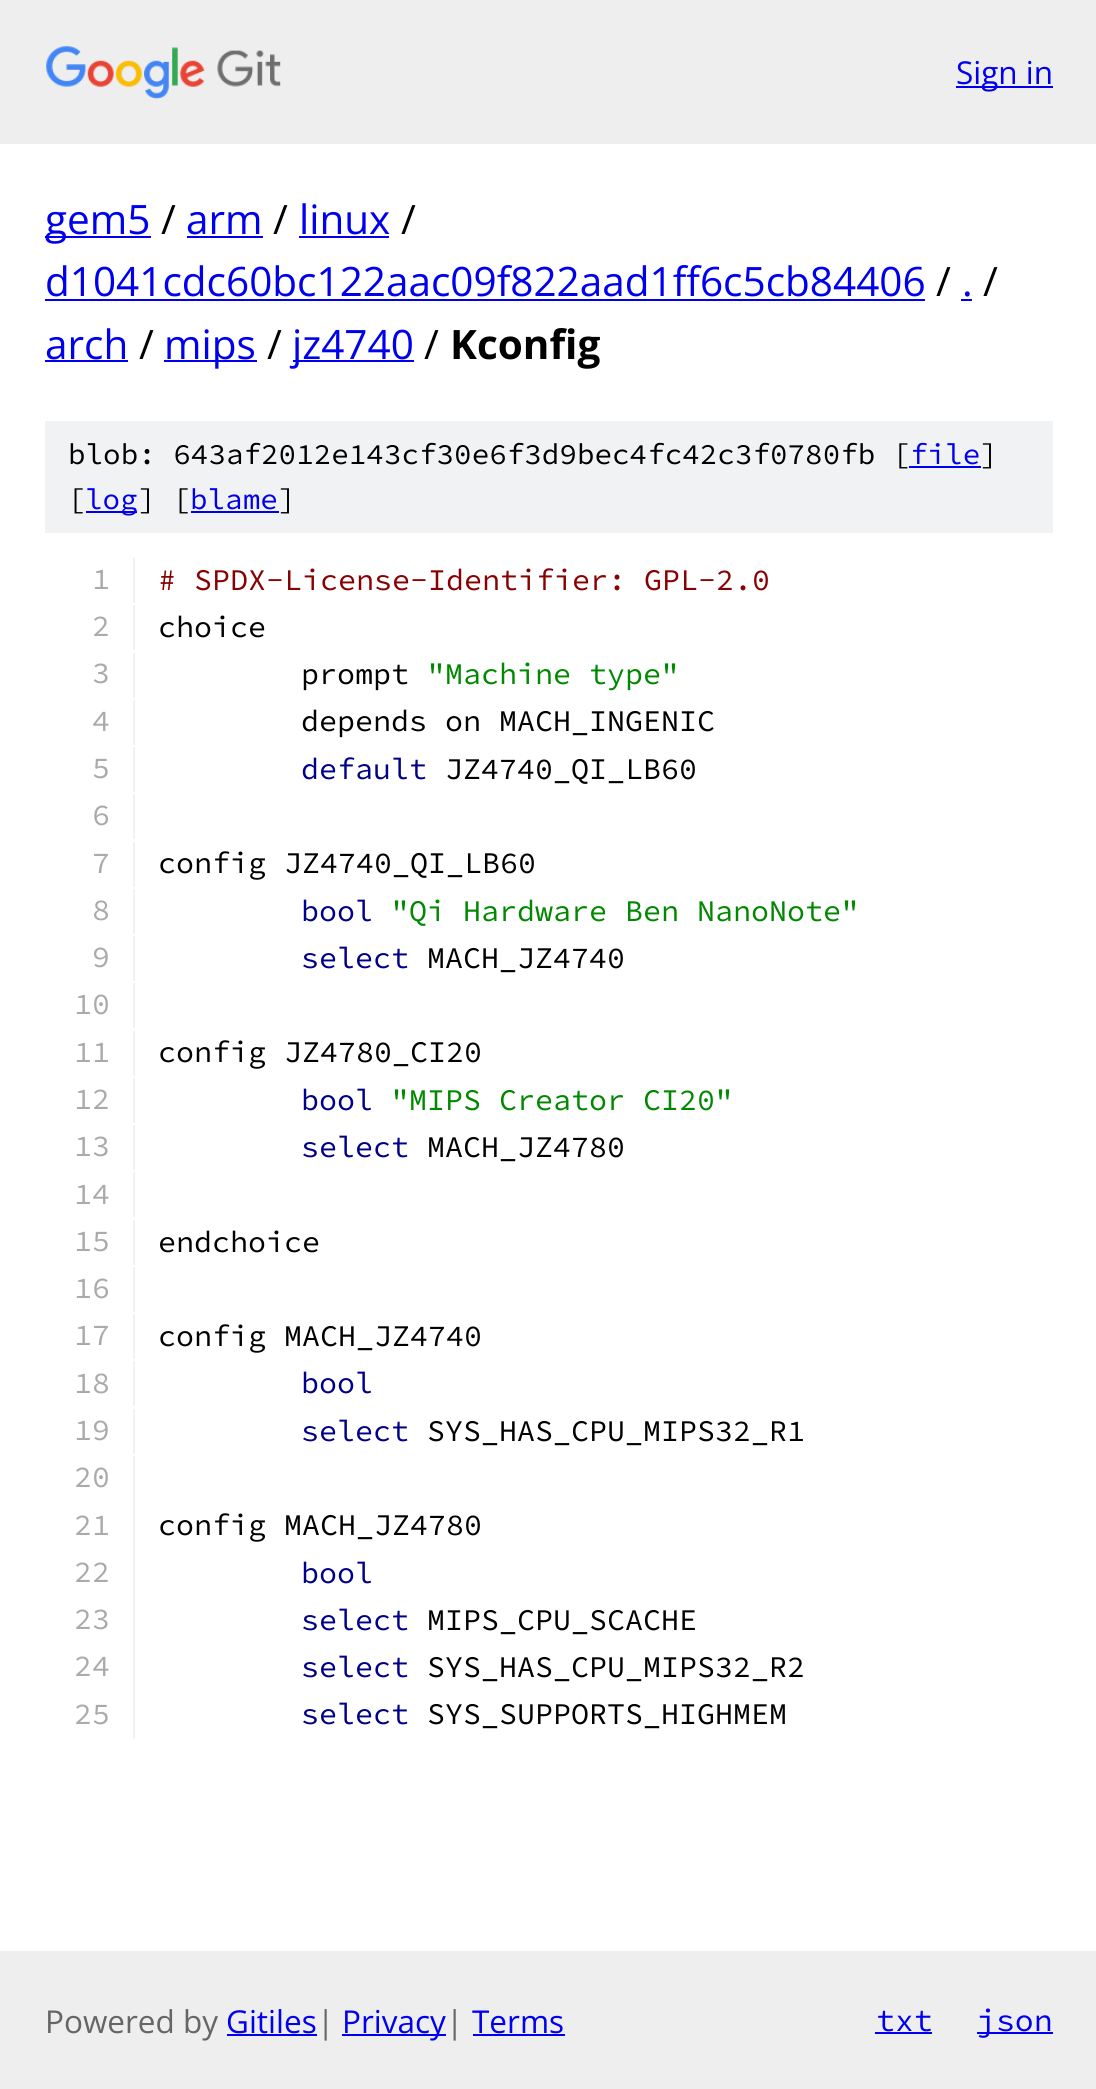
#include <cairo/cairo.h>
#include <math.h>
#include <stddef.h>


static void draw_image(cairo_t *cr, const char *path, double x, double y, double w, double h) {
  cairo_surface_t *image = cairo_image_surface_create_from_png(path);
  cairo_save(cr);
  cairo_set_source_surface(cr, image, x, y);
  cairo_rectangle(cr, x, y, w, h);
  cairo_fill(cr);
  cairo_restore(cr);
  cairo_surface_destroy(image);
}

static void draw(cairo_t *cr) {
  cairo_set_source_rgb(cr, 1, 1, 1);
  cairo_paint(cr);
  cairo_set_source_rgb(cr, 238 / 255.0, 238 / 255.0, 238 / 255.0);
  cairo_rectangle(cr, 0, 0, 1096, 144);
  cairo_fill(cr);
  draw_image(cr, "images/1.png", 46, 46, 235, 53);
  cairo_set_source_rgb(cr, 0, 0, 238 / 255.0);
  cairo_rectangle(cr, 956, 86, 97, 2);
  cairo_fill(cr);
  cairo_rectangle(cr, 45, 236, 106, 2);
  cairo_fill(cr);
  cairo_rectangle(cr, 187, 236, 76, 2);
  cairo_fill(cr);
  cairo_rectangle(cr, 299, 236, 90, 2);
  cairo_fill(cr);
  cairo_rectangle(cr, 45, 299, 880, 2);
  cairo_fill(cr);
  cairo_rectangle(cr, 961, 299, 11, 2);
  cairo_fill(cr);
  cairo_rectangle(cr, 45, 360, 83, 2);
  cairo_fill(cr);
  cairo_rectangle(cr, 164, 360, 93, 2);
  cairo_fill(cr);
  cairo_rectangle(cr, 293, 360, 121, 2);
  cairo_fill(cr);
  cairo_set_source_rgb(cr, 241 / 255.0, 242 / 255.0, 243 / 255.0);
  cairo_rectangle(cr, 45, 421, 1008, 112);
  cairo_fill(cr);
  cairo_set_source_rgb(cr, 0, 0, 238 / 255.0);
  cairo_rectangle(cr, 909, 466, 72, 2);
  cairo_fill(cr);
  cairo_rectangle(cr, 86, 511, 51, 2);
  cairo_fill(cr);
  cairo_rectangle(cr, 191, 511, 88, 2);
  cairo_fill(cr);
  cairo_set_source_rgb(cr, 241 / 255.0, 242 / 255.0, 243 / 255.0);
  cairo_rectangle(cr, 133, 558, 2, 45);
  cairo_fill(cr);
  cairo_rectangle(cr, 133, 605, 2, 45);
  cairo_fill(cr);
  cairo_rectangle(cr, 133, 653, 2, 45);
  cairo_fill(cr);
  cairo_rectangle(cr, 133, 700, 2, 45);
  cairo_fill(cr);
  cairo_rectangle(cr, 133, 747, 2, 45);
  cairo_fill(cr);
  cairo_rectangle(cr, 133, 794, 2, 45);
  cairo_fill(cr);
  cairo_rectangle(cr, 133, 842, 2, 45);
  cairo_fill(cr);
  cairo_rectangle(cr, 133, 889, 2, 45);
  cairo_fill(cr);
  cairo_rectangle(cr, 133, 936, 2, 45);
  cairo_fill(cr);
  cairo_rectangle(cr, 133, 983, 2, 45);
  cairo_fill(cr);
  cairo_rectangle(cr, 133, 1031, 2, 45);
  cairo_fill(cr);
  cairo_rectangle(cr, 133, 1078, 2, 45);
  cairo_fill(cr);
  cairo_rectangle(cr, 133, 1125, 2, 45);
  cairo_fill(cr);
  cairo_rectangle(cr, 133, 1172, 2, 45);
  cairo_fill(cr);
  cairo_rectangle(cr, 133, 1220, 2, 45);
  cairo_fill(cr);
  cairo_rectangle(cr, 133, 1267, 2, 45);
  cairo_fill(cr);
  cairo_rectangle(cr, 133, 1314, 2, 45);
  cairo_fill(cr);
  cairo_rectangle(cr, 133, 1361, 2, 45);
  cairo_fill(cr);
  cairo_rectangle(cr, 133, 1409, 2, 45);
  cairo_fill(cr);
  cairo_rectangle(cr, 133, 1456, 2, 283);
  cairo_fill(cr);
  cairo_set_source_rgb(cr, 238 / 255.0, 238 / 255.0, 238 / 255.0);
  cairo_rectangle(cr, 0, 1951, 1096, 138);
  cairo_fill(cr);
  cairo_set_source_rgb(cr, 0, 0, 238 / 255.0);
  cairo_rectangle(cr, 227, 2034, 90, 2);
  cairo_fill(cr);
  cairo_rectangle(cr, 342, 2034, 104, 2);
  cairo_fill(cr);
  cairo_rectangle(cr, 473, 2034, 92, 2);
  cairo_fill(cr);
  cairo_rectangle(cr, 875, 2032, 57, 2);
  cairo_fill(cr);
  cairo_rectangle(cr, 977, 2032, 76, 2);
  cairo_fill(cr);
  cairo_select_font_face(cr, "Open Sans", CAIRO_FONT_SLANT_NORMAL, CAIRO_FONT_WEIGHT_NORMAL);
  cairo_set_font_size(cr, 31.5);
  cairo_move_to(cr, 956, 84);
  cairo_show_text(cr, "Sign in");
  cairo_set_font_size(cr, 40.5);
  cairo_move_to(cr, 45, 234);
  cairo_show_text(cr, "gem5");
  cairo_set_source_rgb(cr, 0, 0, 0);
  cairo_move_to(cr, 161, 234);
  cairo_show_text(cr, "/");
  cairo_set_source_rgb(cr, 0, 0, 238 / 255.0);
  cairo_move_to(cr, 186, 234);
  cairo_show_text(cr, "arm");
  cairo_set_source_rgb(cr, 0, 0, 0);
  cairo_move_to(cr, 273, 234);
  cairo_show_text(cr, "/");
  cairo_set_source_rgb(cr, 0, 0, 238 / 255.0);
  cairo_move_to(cr, 299, 234);
  cairo_show_text(cr, "linux");
  cairo_set_source_rgb(cr, 0, 0, 0);
  cairo_move_to(cr, 401, 234);
  cairo_show_text(cr, "/");
  cairo_set_source_rgb(cr, 0, 0, 238 / 255.0);
  cairo_move_to(cr, 45, 296);
  cairo_show_text(cr, "d1041cdc60bc122aac09f822aad1ff6c5cb84406");
  cairo_set_source_rgb(cr, 0, 0, 0);
  cairo_move_to(cr, 936, 296);
  cairo_show_text(cr, "/");
  cairo_set_source_rgb(cr, 0, 0, 238 / 255.0);
  cairo_move_to(cr, 962, 296);
  cairo_show_text(cr, ".");
  cairo_set_source_rgb(cr, 0, 0, 0);
  cairo_move_to(cr, 983, 296);
  cairo_show_text(cr, "/");
  cairo_set_source_rgb(cr, 0, 0, 238 / 255.0);
  cairo_move_to(cr, 45, 359);
  cairo_show_text(cr, "arch");
  cairo_set_source_rgb(cr, 0, 0, 0);
  cairo_move_to(cr, 139, 359);
  cairo_show_text(cr, "/");
  cairo_set_source_rgb(cr, 0, 0, 238 / 255.0);
  cairo_move_to(cr, 164, 359);
  cairo_show_text(cr, "mips");
  cairo_set_source_rgb(cr, 0, 0, 0);
  cairo_move_to(cr, 267, 359);
  cairo_show_text(cr, "/");
  cairo_set_source_rgb(cr, 0, 0, 238 / 255.0);
  cairo_move_to(cr, 292, 359);
  cairo_show_text(cr, "jz4740");
  cairo_set_source_rgb(cr, 0, 0, 0);
  cairo_move_to(cr, 424, 359);
  cairo_show_text(cr, "/");
  cairo_select_font_face(cr, "Open Sans", CAIRO_FONT_SLANT_NORMAL, CAIRO_FONT_WEIGHT_BOLD);
  cairo_move_to(cr, 450, 359);
  cairo_show_text(cr, "Kconfig");
  cairo_select_font_face(cr, "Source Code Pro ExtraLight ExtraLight", CAIRO_FONT_SLANT_NORMAL, CAIRO_FONT_WEIGHT_NORMAL);
  cairo_set_font_size(cr, 29.25);
  cairo_move_to(cr, 68, 464);
  cairo_show_text(cr, "blob: 643af2012e143cf30e6f3d9bec4fc42c3f0780fb [");
  cairo_set_source_rgb(cr, 0, 0, 238 / 255.0);
  cairo_move_to(cr, 910, 464);
  cairo_show_text(cr, "file");
  cairo_set_source_rgb(cr, 0, 0, 0);
  cairo_move_to(cr, 980, 464);
  cairo_show_text(cr, "]");
  cairo_move_to(cr, 68, 509);
  cairo_show_text(cr, "[");
  cairo_set_source_rgb(cr, 0, 0, 238 / 255.0);
  cairo_move_to(cr, 85, 509);
  cairo_show_text(cr, "log");
  cairo_set_source_rgb(cr, 0, 0, 0);
  cairo_move_to(cr, 138, 509);
  cairo_show_text(cr, "] [");
  cairo_set_source_rgb(cr, 0, 0, 238 / 255.0);
  cairo_move_to(cr, 190, 509);
  cairo_show_text(cr, "blame");
  cairo_set_source_rgb(cr, 0, 0, 0);
  cairo_move_to(cr, 278, 509);
  cairo_show_text(cr, "]");
  cairo_set_font_size(cr, 30);
  cairo_set_source_rgb(cr, 170 / 255.0, 170 / 255.0, 170 / 255.0);
  cairo_move_to(cr, 92, 589);
  cairo_show_text(cr, "1");
  cairo_set_source_rgb(cr, 136 / 255.0, 0, 0);
  cairo_move_to(cr, 158, 590);
  cairo_show_text(cr, "# SPDX-License-Identifier: GPL-2.0");
  cairo_set_source_rgb(cr, 170 / 255.0, 170 / 255.0, 170 / 255.0);
  cairo_move_to(cr, 92, 636);
  cairo_show_text(cr, "2");
  cairo_set_source_rgb(cr, 0, 0, 0);
  cairo_move_to(cr, 158, 637);
  cairo_show_text(cr, "choice");
  cairo_set_source_rgb(cr, 170 / 255.0, 170 / 255.0, 170 / 255.0);
  cairo_move_to(cr, 92, 683);
  cairo_show_text(cr, "3");
  cairo_set_source_rgb(cr, 0, 0, 0);
  cairo_move_to(cr, 301, 684);
  cairo_show_text(cr, "prompt");
  cairo_set_source_rgb(cr, 0, 136 / 255.0, 0);
  cairo_move_to(cr, 427, 684);
  cairo_show_text(cr, "\"Machine type\"");
  cairo_set_source_rgb(cr, 170 / 255.0, 170 / 255.0, 170 / 255.0);
  cairo_move_to(cr, 92, 731);
  cairo_show_text(cr, "4");
  cairo_set_source_rgb(cr, 0, 0, 0);
  cairo_move_to(cr, 301, 731);
  cairo_show_text(cr, "depends on MACH_INGENIC");
  cairo_set_source_rgb(cr, 170 / 255.0, 170 / 255.0, 170 / 255.0);
  cairo_move_to(cr, 92, 778);
  cairo_show_text(cr, "5");
  cairo_set_source_rgb(cr, 0, 0, 136 / 255.0);
  cairo_move_to(cr, 301, 779);
  cairo_show_text(cr, "default");
  cairo_set_source_rgb(cr, 0, 0, 0);
  cairo_move_to(cr, 445, 779);
  cairo_show_text(cr, "JZ4740_QI_LB60");
  cairo_set_source_rgb(cr, 170 / 255.0, 170 / 255.0, 170 / 255.0);
  cairo_move_to(cr, 92, 825);
  cairo_show_text(cr, "6");
  cairo_move_to(cr, 92, 873);
  cairo_show_text(cr, "7");
  cairo_set_source_rgb(cr, 0, 0, 0);
  cairo_move_to(cr, 158, 873);
  cairo_show_text(cr, "config JZ4740_QI_LB60");
  cairo_set_source_rgb(cr, 170 / 255.0, 170 / 255.0, 170 / 255.0);
  cairo_move_to(cr, 92, 920);
  cairo_show_text(cr, "8");
  cairo_set_source_rgb(cr, 0, 0, 136 / 255.0);
  cairo_move_to(cr, 301, 921);
  cairo_show_text(cr, "bool");
  cairo_set_source_rgb(cr, 0, 136 / 255.0, 0);
  cairo_move_to(cr, 391, 921);
  cairo_show_text(cr, "\"Qi Hardware Ben NanoNote\"");
  cairo_set_source_rgb(cr, 170 / 255.0, 170 / 255.0, 170 / 255.0);
  cairo_move_to(cr, 92, 967);
  cairo_show_text(cr, "9");
  cairo_set_source_rgb(cr, 0, 0, 136 / 255.0);
  cairo_move_to(cr, 301, 968);
  cairo_show_text(cr, "select");
  cairo_set_source_rgb(cr, 0, 0, 0);
  cairo_move_to(cr, 427, 968);
  cairo_show_text(cr, "MACH_JZ4740");
  cairo_set_source_rgb(cr, 170 / 255.0, 170 / 255.0, 170 / 255.0);
  cairo_move_to(cr, 74, 1014);
  cairo_show_text(cr, "10");
  cairo_move_to(cr, 74, 1062);
  cairo_show_text(cr, "11");
  cairo_set_source_rgb(cr, 0, 0, 0);
  cairo_move_to(cr, 158, 1062);
  cairo_show_text(cr, "config JZ4780_CI20");
  cairo_set_source_rgb(cr, 170 / 255.0, 170 / 255.0, 170 / 255.0);
  cairo_move_to(cr, 74, 1109);
  cairo_show_text(cr, "12");
  cairo_set_source_rgb(cr, 0, 0, 136 / 255.0);
  cairo_move_to(cr, 301, 1110);
  cairo_show_text(cr, "bool");
  cairo_set_source_rgb(cr, 0, 136 / 255.0, 0);
  cairo_move_to(cr, 391, 1110);
  cairo_show_text(cr, "\"MIPS Creator CI20\"");
  cairo_set_source_rgb(cr, 170 / 255.0, 170 / 255.0, 170 / 255.0);
  cairo_move_to(cr, 74, 1156);
  cairo_show_text(cr, "13");
  cairo_set_source_rgb(cr, 0, 0, 136 / 255.0);
  cairo_move_to(cr, 301, 1157);
  cairo_show_text(cr, "select");
  cairo_set_source_rgb(cr, 0, 0, 0);
  cairo_move_to(cr, 427, 1157);
  cairo_show_text(cr, "MACH_JZ4780");
  cairo_set_source_rgb(cr, 170 / 255.0, 170 / 255.0, 170 / 255.0);
  cairo_move_to(cr, 74, 1204);
  cairo_show_text(cr, "14");
  cairo_move_to(cr, 74, 1251);
  cairo_show_text(cr, "15");
  cairo_set_source_rgb(cr, 0, 0, 0);
  cairo_move_to(cr, 158, 1252);
  cairo_show_text(cr, "endchoice");
  cairo_set_source_rgb(cr, 170 / 255.0, 170 / 255.0, 170 / 255.0);
  cairo_move_to(cr, 74, 1298);
  cairo_show_text(cr, "16");
  cairo_move_to(cr, 74, 1345);
  cairo_show_text(cr, "17");
  cairo_set_source_rgb(cr, 0, 0, 0);
  cairo_move_to(cr, 158, 1346);
  cairo_show_text(cr, "config MACH_JZ4740");
  cairo_set_source_rgb(cr, 170 / 255.0, 170 / 255.0, 170 / 255.0);
  cairo_move_to(cr, 74, 1393);
  cairo_show_text(cr, "18");
  cairo_set_source_rgb(cr, 0, 0, 136 / 255.0);
  cairo_move_to(cr, 301, 1393);
  cairo_show_text(cr, "bool");
  cairo_set_source_rgb(cr, 170 / 255.0, 170 / 255.0, 170 / 255.0);
  cairo_move_to(cr, 74, 1440);
  cairo_show_text(cr, "19");
  cairo_set_source_rgb(cr, 0, 0, 136 / 255.0);
  cairo_move_to(cr, 301, 1441);
  cairo_show_text(cr, "select");
  cairo_set_source_rgb(cr, 0, 0, 0);
  cairo_move_to(cr, 427, 1441);
  cairo_show_text(cr, "SYS_HAS_CPU_MIPS32_R1");
  cairo_set_source_rgb(cr, 170 / 255.0, 170 / 255.0, 170 / 255.0);
  cairo_move_to(cr, 74, 1487);
  cairo_show_text(cr, "20");
  cairo_move_to(cr, 74, 1535);
  cairo_show_text(cr, "21");
  cairo_set_source_rgb(cr, 0, 0, 0);
  cairo_move_to(cr, 158, 1535);
  cairo_show_text(cr, "config MACH_JZ4780");
  cairo_set_source_rgb(cr, 170 / 255.0, 170 / 255.0, 170 / 255.0);
  cairo_move_to(cr, 74, 1582);
  cairo_show_text(cr, "22");
  cairo_set_source_rgb(cr, 0, 0, 136 / 255.0);
  cairo_move_to(cr, 301, 1583);
  cairo_show_text(cr, "bool");
  cairo_set_source_rgb(cr, 170 / 255.0, 170 / 255.0, 170 / 255.0);
  cairo_move_to(cr, 74, 1629);
  cairo_show_text(cr, "23");
  cairo_set_source_rgb(cr, 0, 0, 136 / 255.0);
  cairo_move_to(cr, 301, 1630);
  cairo_show_text(cr, "select");
  cairo_set_source_rgb(cr, 0, 0, 0);
  cairo_move_to(cr, 427, 1630);
  cairo_show_text(cr, "MIPS_CPU_SCACHE");
  cairo_set_source_rgb(cr, 170 / 255.0, 170 / 255.0, 170 / 255.0);
  cairo_move_to(cr, 74, 1676);
  cairo_show_text(cr, "24");
  cairo_set_source_rgb(cr, 0, 0, 136 / 255.0);
  cairo_move_to(cr, 301, 1677);
  cairo_show_text(cr, "select");
  cairo_set_source_rgb(cr, 0, 0, 0);
  cairo_move_to(cr, 427, 1677);
  cairo_show_text(cr, "SYS_HAS_CPU_MIPS32_R2");
  cairo_set_source_rgb(cr, 170 / 255.0, 170 / 255.0, 170 / 255.0);
  cairo_move_to(cr, 74, 1724);
  cairo_show_text(cr, "25");
  cairo_set_source_rgb(cr, 0, 0, 136 / 255.0);
  cairo_move_to(cr, 301, 1724);
  cairo_show_text(cr, "select");
  cairo_set_source_rgb(cr, 0, 0, 0);
  cairo_move_to(cr, 427, 1724);
  cairo_show_text(cr, "SYS_SUPPORTS_HIGHMEM");
  cairo_select_font_face(cr, "Open Sans", CAIRO_FONT_SLANT_NORMAL, CAIRO_FONT_WEIGHT_NORMAL);
  cairo_set_font_size(cr, 31.5);
  cairo_set_source_rgb(cr, 102 / 255.0, 102 / 255.0, 102 / 255.0);
  cairo_move_to(cr, 45, 2033);
  cairo_show_text(cr, "Powered by");
  cairo_set_source_rgb(cr, 0, 0, 238 / 255.0);
  cairo_move_to(cr, 226, 2033);
  cairo_show_text(cr, "Gitiles");
  cairo_set_source_rgb(cr, 102 / 255.0, 102 / 255.0, 102 / 255.0);
  cairo_move_to(cr, 317, 2033);
  cairo_show_text(cr, "|");
  cairo_set_source_rgb(cr, 0, 0, 238 / 255.0);
  cairo_move_to(cr, 342, 2033);
  cairo_show_text(cr, "Privacy");
  cairo_set_source_rgb(cr, 102 / 255.0, 102 / 255.0, 102 / 255.0);
  cairo_move_to(cr, 446, 2033);
  cairo_show_text(cr, "|");
  cairo_set_source_rgb(cr, 0, 0, 238 / 255.0);
  cairo_move_to(cr, 472, 2033);
  cairo_show_text(cr, "Terms");
  cairo_select_font_face(cr, "Source Code Pro ExtraLight ExtraLight", CAIRO_FONT_SLANT_NORMAL, CAIRO_FONT_WEIGHT_NORMAL);
  cairo_move_to(cr, 876, 2031);
  cairo_show_text(cr, "txt");
  cairo_move_to(cr, 977, 2031);
  cairo_show_text(cr, "json");
}

int main(void) {
  cairo_surface_t *surface = cairo_image_surface_create(CAIRO_FORMAT_RGB24, 1096, 2089);
  cairo_t *cr = cairo_create(surface);
  cairo_font_options_t *options = cairo_font_options_create();
  cairo_font_options_set_hint_metrics(options, CAIRO_HINT_METRICS_OFF);
  cairo_font_options_set_hint_style(options, CAIRO_HINT_STYLE_NONE);
  cairo_set_font_options(cr, options);
  cairo_set_miter_limit(cr, 4);
  draw(cr);
  cairo_surface_write_to_png(surface, "out.png");
  cairo_font_options_destroy(options);
  cairo_destroy(cr);
  cairo_surface_destroy(surface);
  return 0;
}
